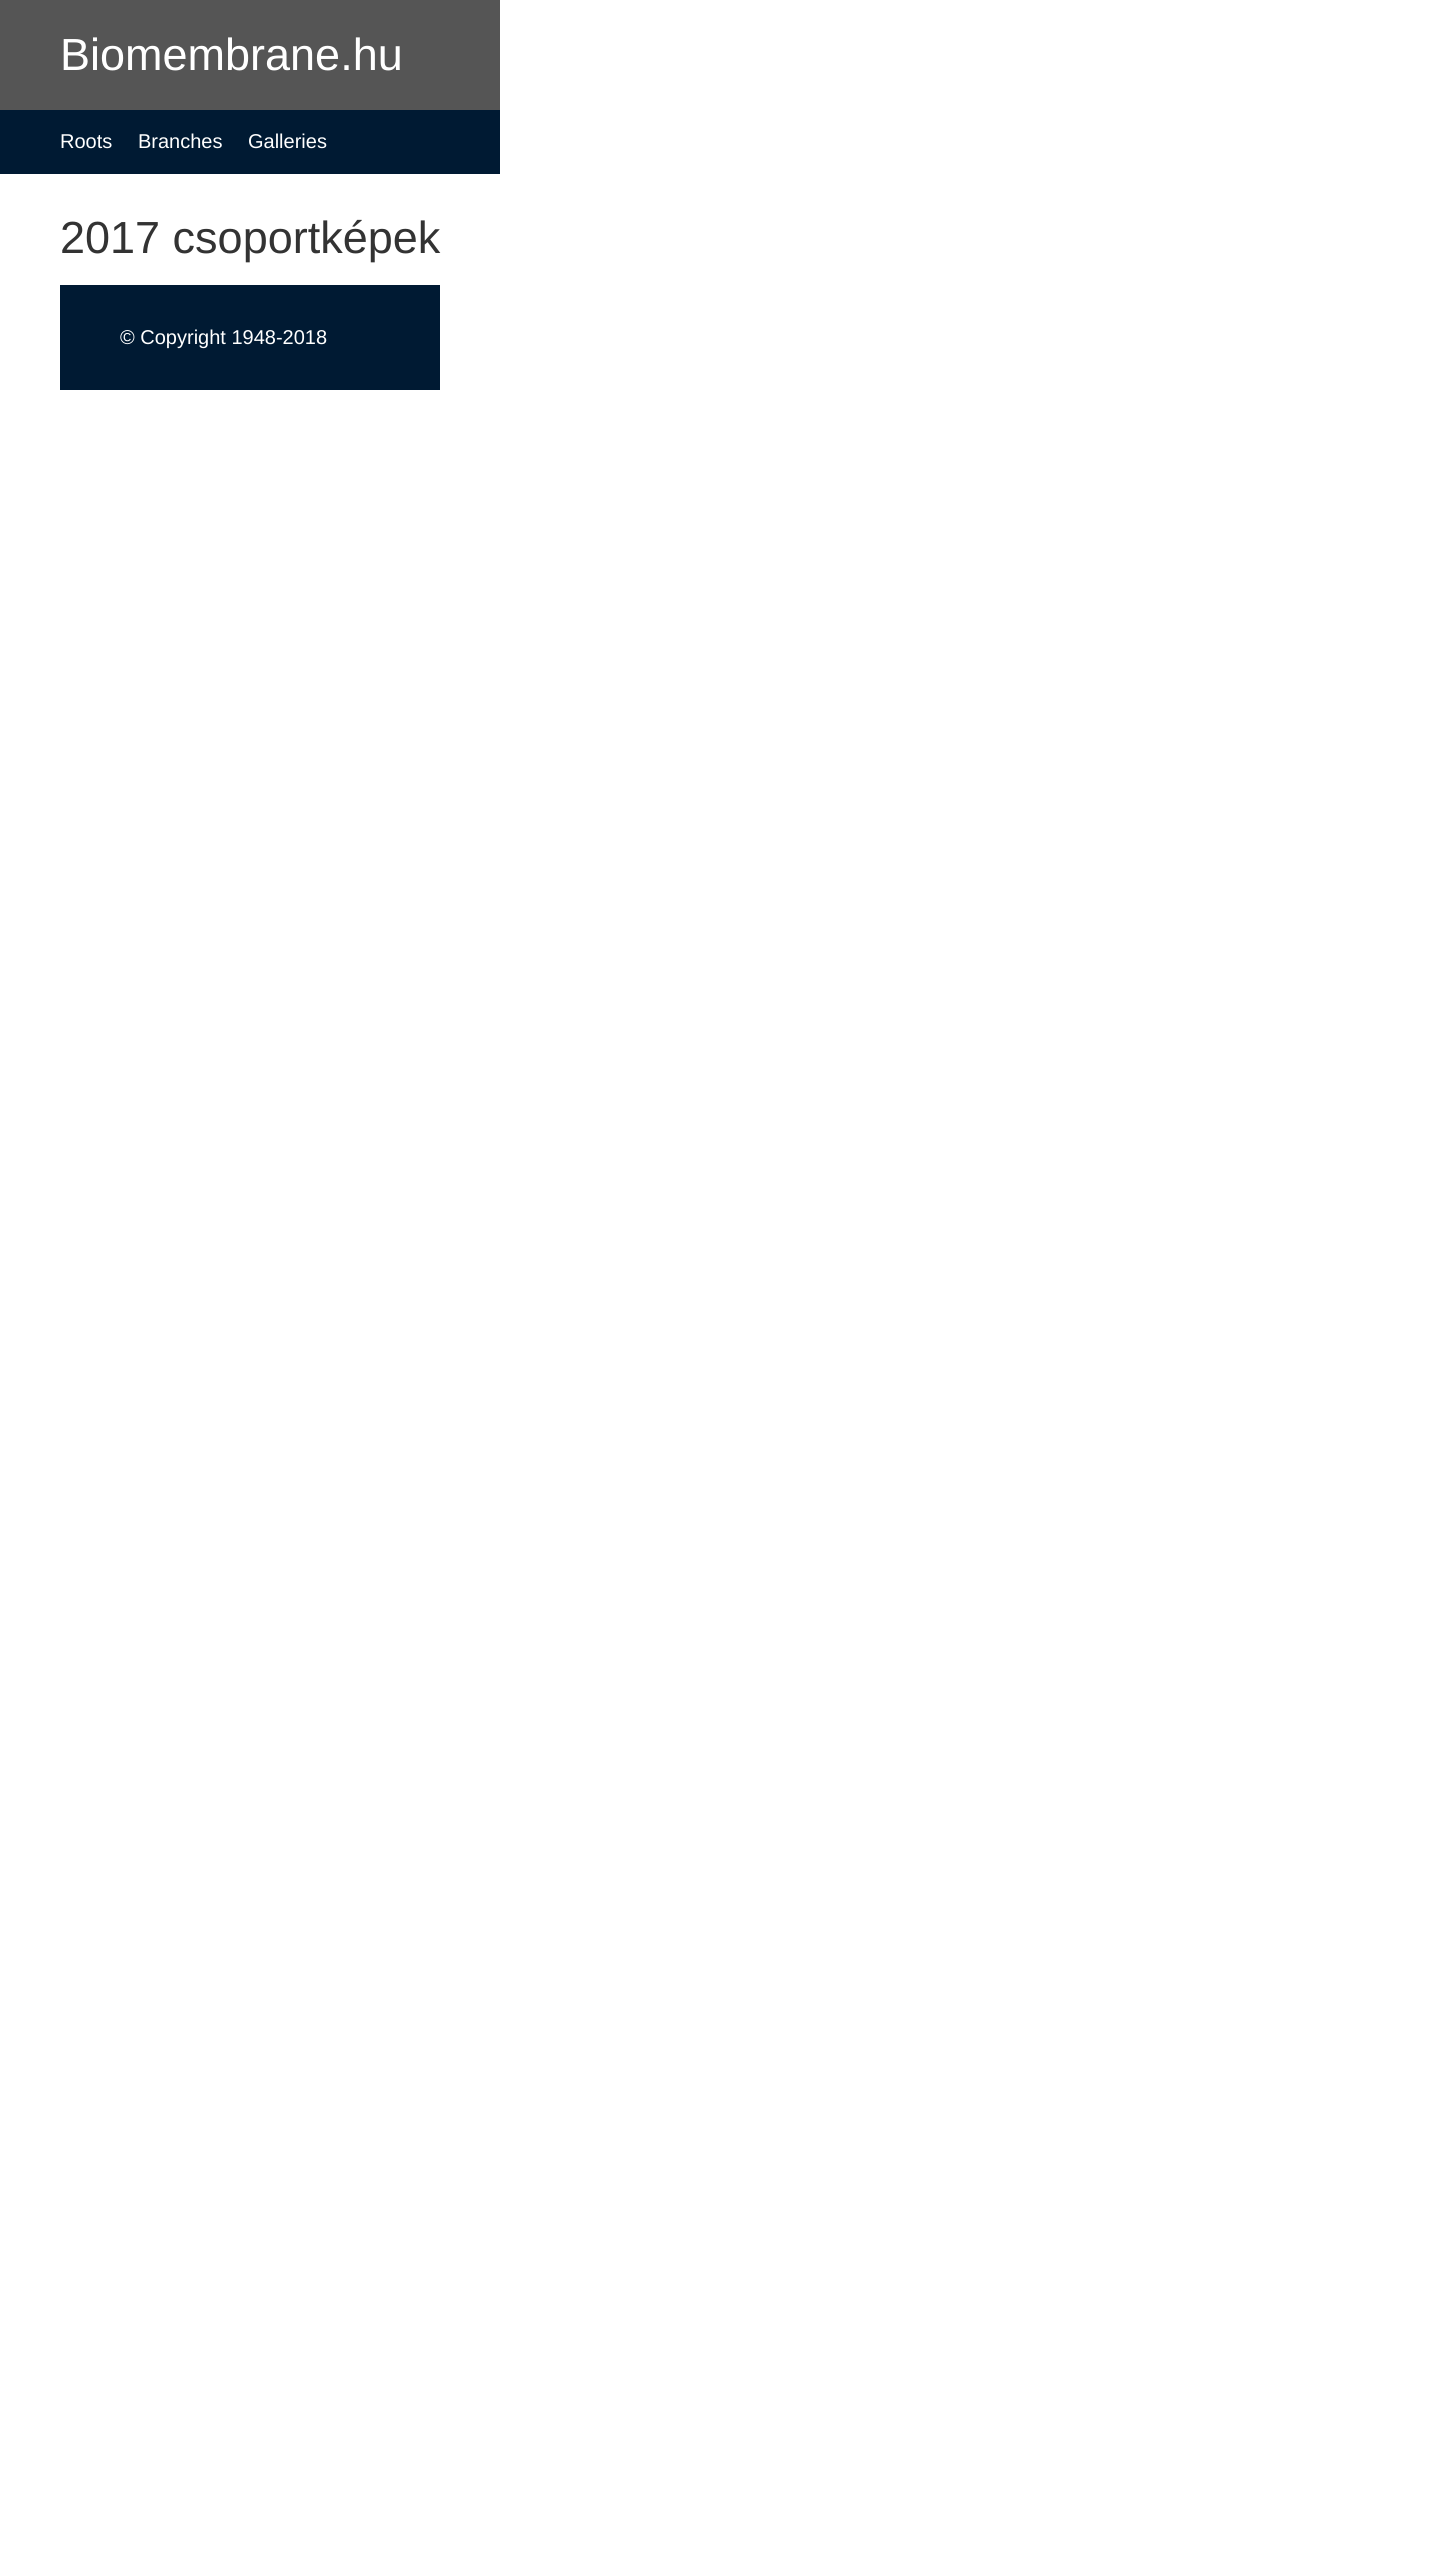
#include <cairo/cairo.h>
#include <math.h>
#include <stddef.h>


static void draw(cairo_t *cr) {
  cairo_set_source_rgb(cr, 1, 1, 1);
  cairo_paint(cr);
  cairo_set_source_rgb(cr, 85 / 255.0, 85 / 255.0, 85 / 255.0);
  cairo_rectangle(cr, 0, 0, 500, 110);
  cairo_fill(cr);
  cairo_set_source_rgb(cr, 0, 26 / 255.0, 51 / 255.0);
  cairo_rectangle(cr, 0, 110, 500, 64);
  cairo_fill(cr);
  cairo_rectangle(cr, 60, 285, 380, 105);
  cairo_fill(cr);
  cairo_select_font_face(cr, "Liberation Sans", CAIRO_FONT_SLANT_NORMAL, CAIRO_FONT_WEIGHT_NORMAL);
  cairo_set_font_size(cr, 45);
  cairo_set_source_rgb(cr, 1, 1, 1);
  cairo_move_to(cr, 60, 70);
  cairo_show_text(cr, "Biomembrane.hu");
  cairo_set_font_size(cr, 20);
  cairo_move_to(cr, 60, 148);
  cairo_show_text(cr, "Roots");
  cairo_move_to(cr, 138, 148);
  cairo_show_text(cr, "Branches");
  cairo_move_to(cr, 248, 148);
  cairo_show_text(cr, "Galleries");
  cairo_set_font_size(cr, 45);
  cairo_set_source_rgb(cr, 51 / 255.0, 51 / 255.0, 51 / 255.0);
  cairo_move_to(cr, 60, 253);
  cairo_show_text(cr, "2017 csoportképek");
  cairo_set_font_size(cr, 20);
  cairo_set_source_rgb(cr, 1, 1, 1);
  cairo_move_to(cr, 120, 344);
  cairo_show_text(cr, "© Copyright 1948-2018");
}

int main(void) {
  cairo_surface_t *surface = cairo_image_surface_create(CAIRO_FORMAT_RGB24, 1451, 2555);
  cairo_t *cr = cairo_create(surface);
  cairo_font_options_t *options = cairo_font_options_create();
  cairo_font_options_set_hint_metrics(options, CAIRO_HINT_METRICS_OFF);
  cairo_font_options_set_hint_style(options, CAIRO_HINT_STYLE_NONE);
  cairo_set_font_options(cr, options);
  cairo_set_miter_limit(cr, 4);
  draw(cr);
  cairo_surface_write_to_png(surface, "out.png");
  cairo_font_options_destroy(options);
  cairo_destroy(cr);
  cairo_surface_destroy(surface);
  return 0;
}
